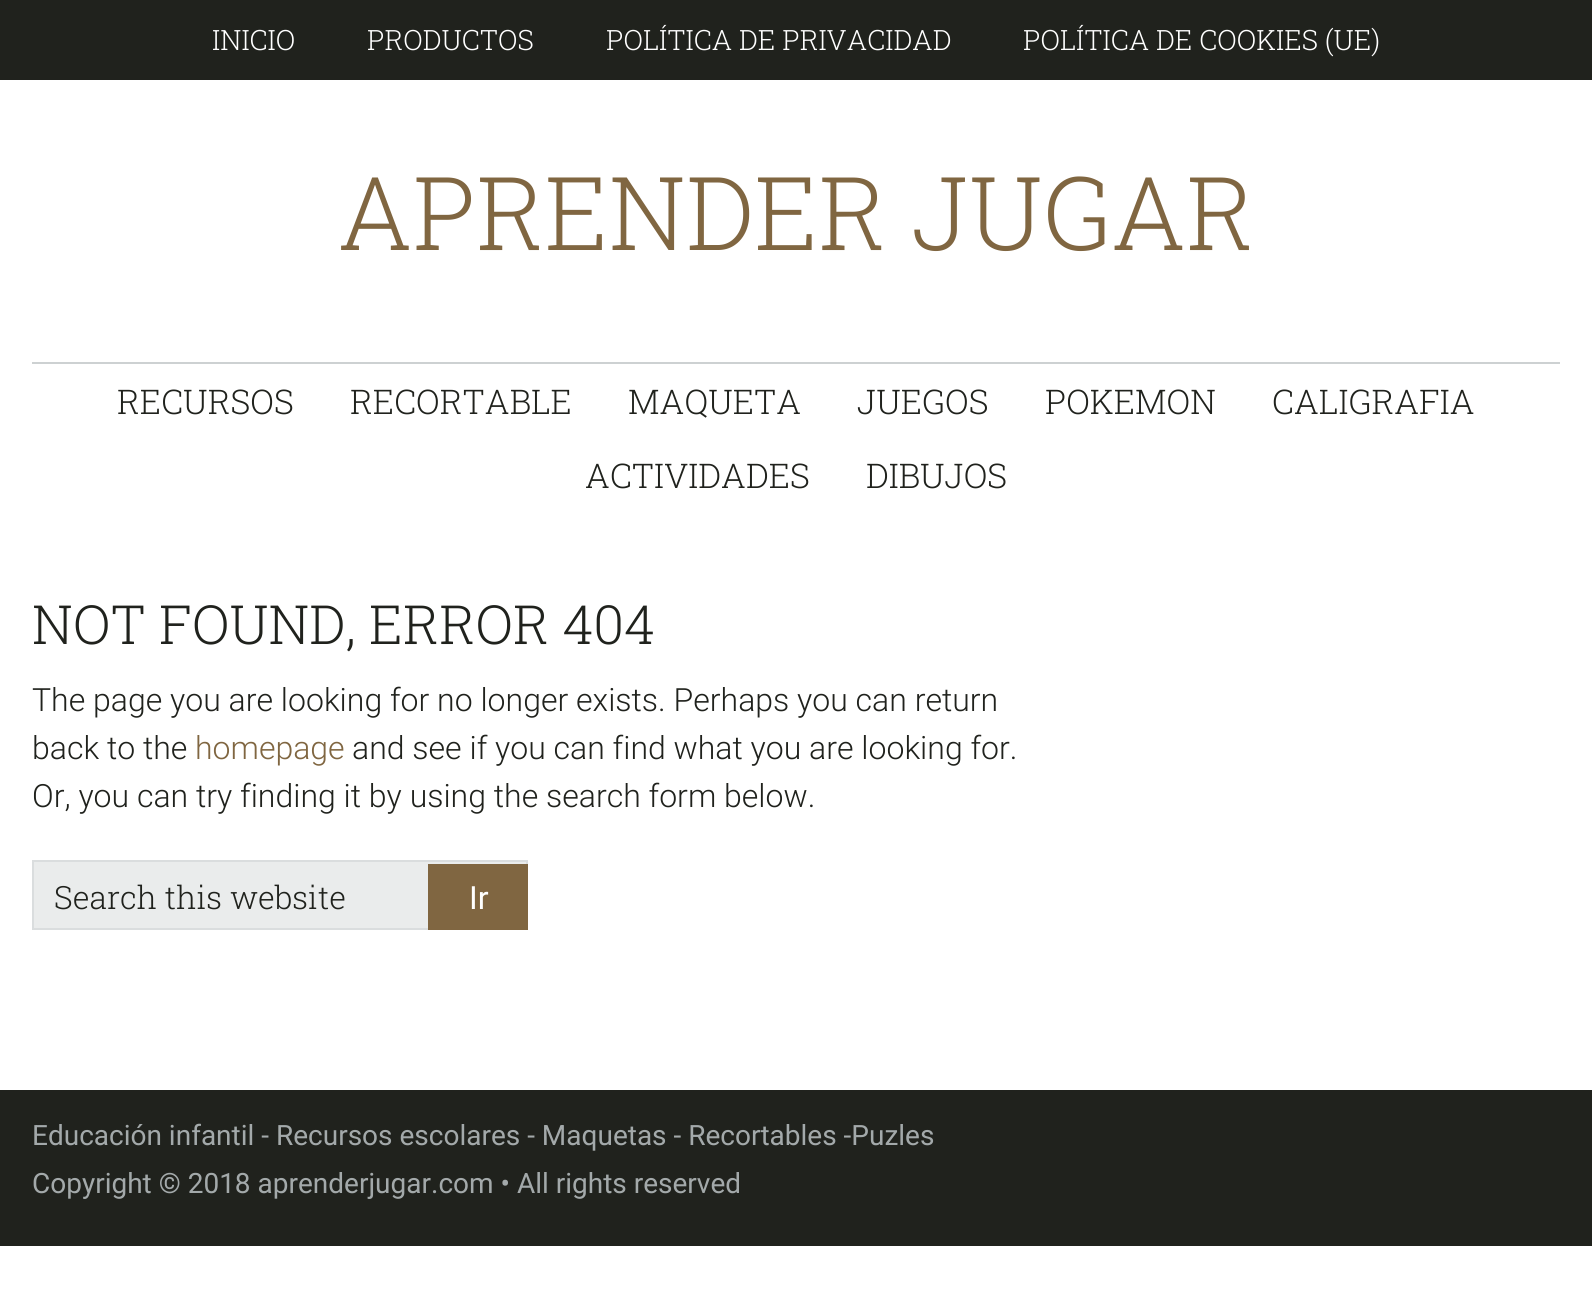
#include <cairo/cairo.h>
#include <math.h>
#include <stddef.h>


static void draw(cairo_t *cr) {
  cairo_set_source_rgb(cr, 1, 1, 1);
  cairo_paint(cr);
  cairo_set_source_rgb(cr, 32 / 255.0, 34 / 255.0, 29 / 255.0);
  cairo_rectangle(cr, 0, 0, 1592, 80);
  cairo_fill(cr);
  cairo_set_source_rgb(cr, 205 / 255.0, 209 / 255.0, 210 / 255.0);
  cairo_rectangle(cr, 32, 362, 1528, 2);
  cairo_fill(cr);
  cairo_set_source_rgb(cr, 234 / 255.0, 236 / 255.0, 236 / 255.0);
  cairo_rectangle(cr, 33, 861, 494, 68);
  cairo_fill_preserve(cr);
  cairo_set_source_rgb(cr, 218 / 255.0, 221 / 255.0, 222 / 255.0);
  cairo_stroke(cr);
  cairo_set_source_rgb(cr, 128 / 255.0, 102 / 255.0, 65 / 255.0);
  cairo_rectangle(cr, 428, 864, 100, 66);
  cairo_fill(cr);
  cairo_set_source_rgb(cr, 32 / 255.0, 34 / 255.0, 29 / 255.0);
  cairo_rectangle(cr, 0, 1090, 1592, 156);
  cairo_fill(cr);
  cairo_select_font_face(cr, "Roboto Slab Light", CAIRO_FONT_SLANT_NORMAL, CAIRO_FONT_WEIGHT_NORMAL);
  cairo_set_font_size(cr, 28);
  cairo_set_source_rgb(cr, 1, 1, 1);
  cairo_move_to(cr, 212, 50);
  cairo_show_text(cr, "INICIO");
  cairo_move_to(cr, 367, 50);
  cairo_show_text(cr, "PRODUCTOS");
  cairo_move_to(cr, 606, 50);
  cairo_show_text(cr, "POLÍTICA DE PRIVACIDAD");
  cairo_move_to(cr, 1023, 50);
  cairo_show_text(cr, "POLÍTICA DE COOKIES (UE)");
  cairo_set_font_size(cr, 102);
  cairo_set_source_rgb(cr, 128 / 255.0, 102 / 255.0, 65 / 255.0);
  cairo_move_to(cr, 338, 250);
  cairo_show_text(cr, "APRENDER JUGAR");
  cairo_set_font_size(cr, 34);
  cairo_set_source_rgb(cr, 32 / 255.0, 34 / 255.0, 29 / 255.0);
  cairo_move_to(cr, 117, 414);
  cairo_show_text(cr, "RECURSOS");
  cairo_move_to(cr, 350, 414);
  cairo_show_text(cr, "RECORTABLE");
  cairo_move_to(cr, 628, 414);
  cairo_show_text(cr, "MAQUETA");
  cairo_move_to(cr, 857, 414);
  cairo_show_text(cr, "JUEGOS");
  cairo_move_to(cr, 1045, 414);
  cairo_show_text(cr, "POKEMON");
  cairo_move_to(cr, 1272, 414);
  cairo_show_text(cr, "CALIGRAFIA");
  cairo_move_to(cr, 585, 488);
  cairo_show_text(cr, "ACTIVIDADES");
  cairo_move_to(cr, 866, 488);
  cairo_show_text(cr, "DIBUJOS");
  cairo_set_font_size(cr, 54);
  cairo_move_to(cr, 32, 644);
  cairo_show_text(cr, "NOT FOUND, ERROR 404");
  cairo_select_font_face(cr, "Roboto Light", CAIRO_FONT_SLANT_NORMAL, CAIRO_FONT_WEIGHT_NORMAL);
  cairo_set_font_size(cr, 32);
  cairo_move_to(cr, 32, 711);
  cairo_show_text(cr, "The page you are looking for no longer exists. Perhaps you can return");
  cairo_move_to(cr, 32, 759);
  cairo_show_text(cr, "back to the");
  cairo_set_source_rgb(cr, 128 / 255.0, 102 / 255.0, 65 / 255.0);
  cairo_move_to(cr, 195, 759);
  cairo_show_text(cr, "homepage");
  cairo_set_source_rgb(cr, 32 / 255.0, 34 / 255.0, 29 / 255.0);
  cairo_move_to(cr, 352, 759);
  cairo_show_text(cr, "and see if you can find what you are looking for.");
  cairo_move_to(cr, 32, 807);
  cairo_show_text(cr, "Or, you can try finding it by using the search form below.");
  cairo_select_font_face(cr, "Roboto Slab Light", CAIRO_FONT_SLANT_NORMAL, CAIRO_FONT_WEIGHT_NORMAL);
  cairo_move_to(cr, 54, 909);
  cairo_show_text(cr, "Search this website");
  cairo_select_font_face(cr, "Roboto", CAIRO_FONT_SLANT_NORMAL, CAIRO_FONT_WEIGHT_NORMAL);
  cairo_set_source_rgb(cr, 1, 1, 1);
  cairo_move_to(cr, 469, 909);
  cairo_show_text(cr, "Ir");
  cairo_set_font_size(cr, 28);
  cairo_set_source_rgb(cr, 163 / 255.0, 169 / 255.0, 170 / 255.0);
  cairo_move_to(cr, 32, 1145);
  cairo_show_text(cr, "Educación infantil - Recursos escolares - Maquetas - Recortables -Puzles");
  cairo_move_to(cr, 32, 1193);
  cairo_show_text(cr, "Copyright © 2018 aprenderjugar.com • All rights reserved");
}

int main(void) {
  cairo_surface_t *surface = cairo_image_surface_create(CAIRO_FORMAT_RGB24, 1592, 1295);
  cairo_t *cr = cairo_create(surface);
  cairo_font_options_t *options = cairo_font_options_create();
  cairo_font_options_set_hint_metrics(options, CAIRO_HINT_METRICS_OFF);
  cairo_font_options_set_hint_style(options, CAIRO_HINT_STYLE_NONE);
  cairo_set_font_options(cr, options);
  cairo_set_miter_limit(cr, 4);
  draw(cr);
  cairo_surface_write_to_png(surface, "out.png");
  cairo_font_options_destroy(options);
  cairo_destroy(cr);
  cairo_surface_destroy(surface);
  return 0;
}
